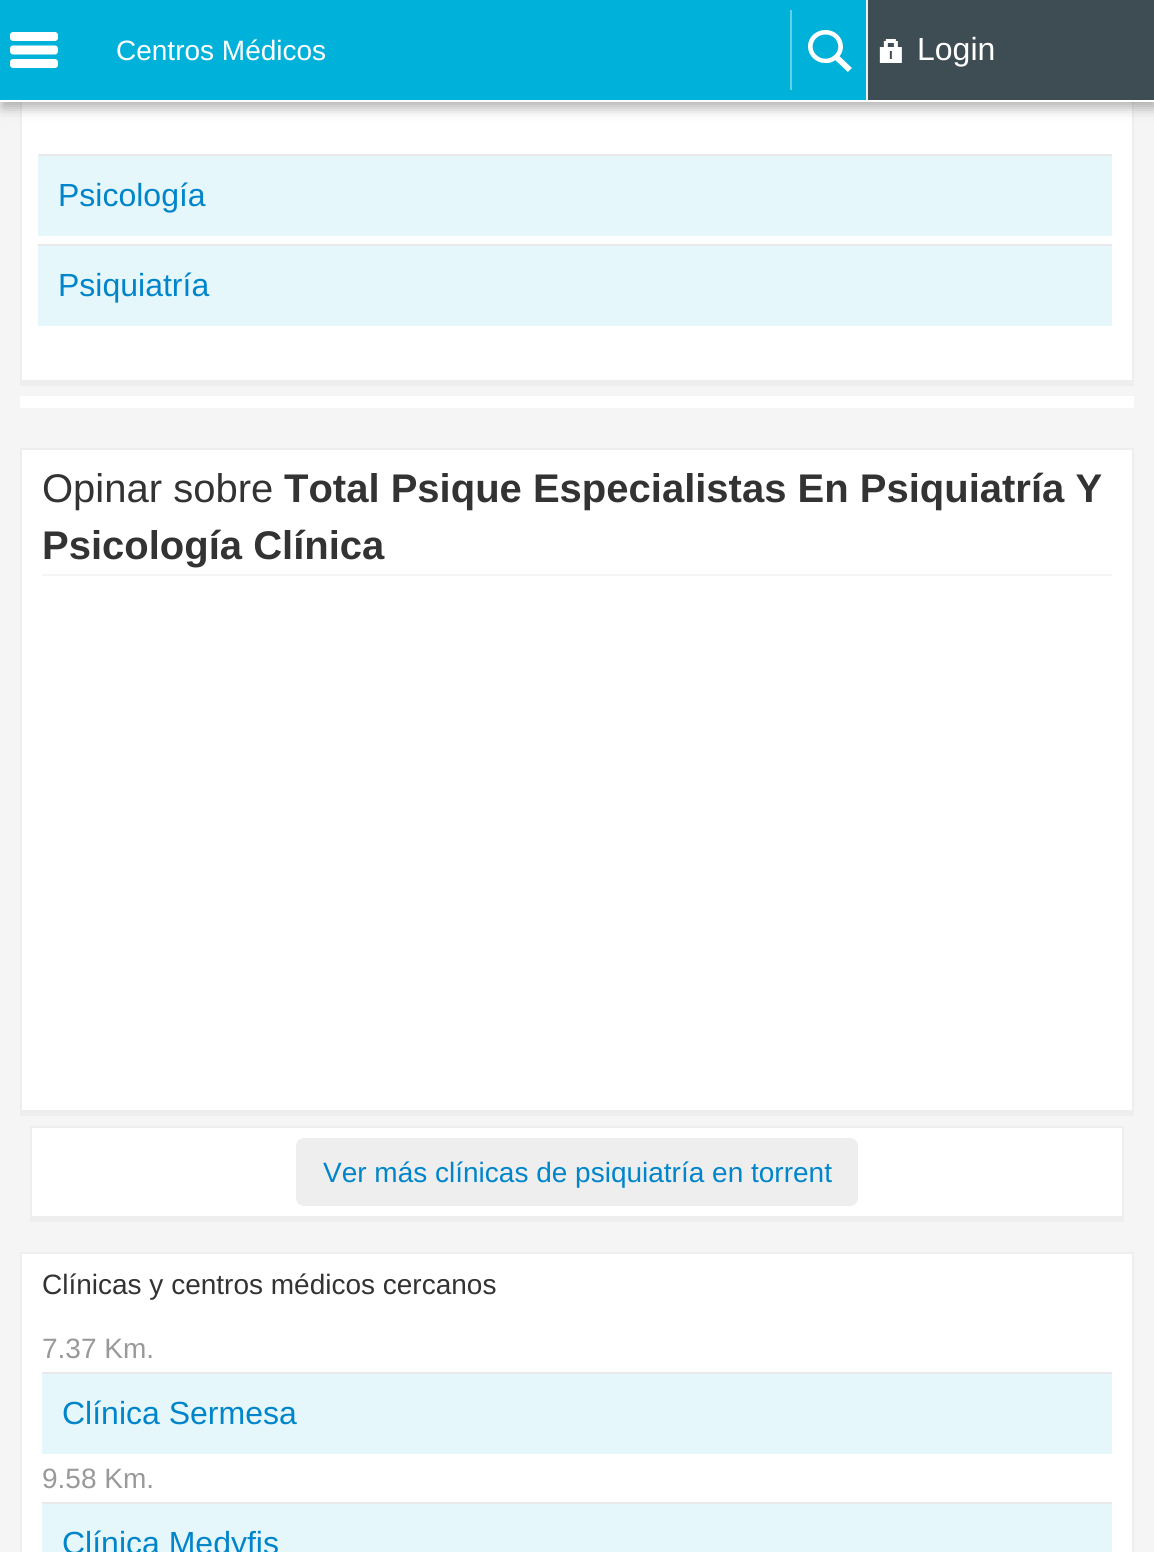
#include <cairo/cairo.h>
#include <math.h>
#include <stddef.h>


static void rounded_rect(cairo_t *cr, double x, double y, double w, double h, double r) {
  cairo_new_sub_path(cr);
  cairo_arc(cr, x + w - r, y + h - r, r, 0, M_PI / 2);
  cairo_arc(cr, x + r, y + h - r, r, M_PI / 2, M_PI);
  cairo_arc(cr, x + r, y + r, r, M_PI, 1.5 * M_PI);
  cairo_arc(cr, x + w - r, y + r, r, 1.5 * M_PI, 2 * M_PI);
  cairo_close_path(cr);
}

static void draw_shadow(cairo_t *cr, double x, double y, double w, double h, double r, double blur, double alpha) {
  cairo_push_group_with_content(cr, CAIRO_CONTENT_ALPHA);
  cairo_set_operator(cr, CAIRO_OPERATOR_SOURCE);
  for (int i = 15; i >= -15 && fmin(w, h) + blur * i / 3 > 0; i -= 2) {
    double e = blur * i / 6;
    cairo_set_source_rgba(cr, 0, 0, 0, alpha * erfc((i - 1) / 8.5) / 2);
    rounded_rect(cr, x - e, y - e, w + 2 * e, h + 2 * e, fmax(0, fmin(r + e + blur * .6, fmin(w, h) / 2 + e)));
    cairo_fill(cr);
  }
  cairo_pattern_t *soft = cairo_pop_group(cr);
  cairo_mask(cr, soft);
  cairo_pattern_destroy(soft);
}

static void draw_image(cairo_t *cr, const char *path, double x, double y, double w, double h) {
  cairo_surface_t *image = cairo_image_surface_create_from_png(path);
  cairo_save(cr);
  cairo_set_source_surface(cr, image, x, y);
  cairo_rectangle(cr, x, y, w, h);
  cairo_fill(cr);
  cairo_restore(cr);
  cairo_surface_destroy(image);
}

static void draw(cairo_t *cr) {
  cairo_set_source_rgb(cr, 245 / 255.0, 245 / 255.0, 245 / 255.0);
  cairo_paint(cr);
  cairo_set_source_rgb(cr, 1, 1, 1);
  cairo_rectangle(cr, 22, 102, 1110, 278);
  cairo_fill(cr);
  cairo_set_source_rgb(cr, 238 / 255.0, 238 / 255.0, 238 / 255.0);
  cairo_rectangle(cr, 1132, 102, 2, 284);
  cairo_fill(cr);
  cairo_rectangle(cr, 20, 380, 1114, 6);
  cairo_fill(cr);
  cairo_rectangle(cr, 20, 102, 2, 284);
  cairo_fill(cr);
  cairo_set_source_rgb(cr, 40 / 255.0, 40 / 255.0, 40 / 255.0);
  draw_shadow(cr, 2, 6, 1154, 102, 0, 6, 0.36);
  cairo_set_source_rgb(cr, 0, 177 / 255.0, 217 / 255.0);
  cairo_rectangle(cr, 0, 0, 866, 100);
  cairo_fill(cr);
  cairo_set_source_rgb(cr, 1, 1, 1);
  cairo_rectangle(cr, 0, 100, 1154, 2);
  cairo_fill(cr);
  draw_image(cr, "images/1.png", 10, 32, 48, 36);
  cairo_set_source_rgb(cr, 102 / 255.0, 208 / 255.0, 232 / 255.0);
  cairo_rectangle(cr, 790, 10, 2, 80);
  cairo_fill(cr);
  draw_image(cr, "images/2.png", 808, 30, 44, 42);
  cairo_set_source_rgb(cr, 62 / 255.0, 77 / 255.0, 84 / 255.0);
  cairo_rectangle(cr, 868, 0, 286, 100);
  cairo_fill(cr);
  cairo_set_source_rgb(cr, 238 / 255.0, 238 / 255.0, 238 / 255.0);
  cairo_rectangle(cr, 866, 0, 2, 100);
  cairo_fill(cr);
  draw_image(cr, "images/3.png", 879, 39, 23, 24);
  cairo_set_source_rgb(cr, 230 / 255.0, 247 / 255.0, 251 / 255.0);
  cairo_rectangle(cr, 38, 156, 1074, 80);
  cairo_fill(cr);
  cairo_set_source_rgb(cr, 233 / 255.0, 233 / 255.0, 233 / 255.0);
  cairo_rectangle(cr, 38, 154, 1074, 2);
  cairo_fill(cr);
  cairo_set_source_rgb(cr, 230 / 255.0, 247 / 255.0, 251 / 255.0);
  cairo_rectangle(cr, 38, 246, 1074, 80);
  cairo_fill(cr);
  cairo_set_source_rgb(cr, 233 / 255.0, 233 / 255.0, 233 / 255.0);
  cairo_rectangle(cr, 38, 244, 1074, 2);
  cairo_fill(cr);
  cairo_set_source_rgb(cr, 1, 1, 1);
  cairo_rectangle(cr, 20, 396, 1114, 12);
  cairo_fill(cr);
  cairo_rectangle(cr, 22, 450, 1110, 660);
  cairo_fill(cr);
  cairo_set_source_rgb(cr, 238 / 255.0, 238 / 255.0, 238 / 255.0);
  cairo_rectangle(cr, 20, 448, 1114, 2);
  cairo_fill(cr);
  cairo_rectangle(cr, 1132, 448, 2, 668);
  cairo_fill(cr);
  cairo_rectangle(cr, 20, 1110, 1114, 6);
  cairo_fill(cr);
  cairo_rectangle(cr, 20, 448, 2, 668);
  cairo_fill(cr);
  cairo_set_source_rgb(cr, 245 / 255.0, 245 / 255.0, 245 / 255.0);
  cairo_rectangle(cr, 42, 574, 1070, 2);
  cairo_fill(cr);
  cairo_set_source_rgb(cr, 1, 1, 1);
  cairo_rectangle(cr, 32, 1128, 1090, 88);
  cairo_fill(cr);
  cairo_set_source_rgb(cr, 238 / 255.0, 238 / 255.0, 238 / 255.0);
  cairo_rectangle(cr, 30, 1126, 1094, 2);
  cairo_fill(cr);
  cairo_rectangle(cr, 1122, 1126, 2, 96);
  cairo_fill(cr);
  cairo_rectangle(cr, 30, 1216, 1094, 6);
  cairo_fill(cr);
  cairo_rectangle(cr, 30, 1126, 2, 96);
  cairo_fill(cr);
  rounded_rect(cr, 296, 1138, 562, 68, 8);
  cairo_fill(cr);
  cairo_set_source_rgb(cr, 1, 1, 1);
  cairo_rectangle(cr, 22, 1254, 1110, 298);
  cairo_fill(cr);
  cairo_set_source_rgb(cr, 238 / 255.0, 238 / 255.0, 238 / 255.0);
  cairo_rectangle(cr, 20, 1252, 1114, 2);
  cairo_fill(cr);
  cairo_rectangle(cr, 1132, 1252, 2, 300);
  cairo_fill(cr);
  cairo_rectangle(cr, 20, 1252, 2, 300);
  cairo_fill(cr);
  cairo_set_source_rgb(cr, 230 / 255.0, 247 / 255.0, 251 / 255.0);
  cairo_rectangle(cr, 42, 1374, 1070, 80);
  cairo_fill(cr);
  cairo_set_source_rgb(cr, 233 / 255.0, 233 / 255.0, 233 / 255.0);
  cairo_rectangle(cr, 42, 1372, 1070, 2);
  cairo_fill(cr);
  cairo_set_source_rgb(cr, 230 / 255.0, 247 / 255.0, 251 / 255.0);
  cairo_rectangle(cr, 42, 1504, 1070, 48);
  cairo_fill(cr);
  cairo_set_source_rgb(cr, 233 / 255.0, 233 / 255.0, 233 / 255.0);
  cairo_rectangle(cr, 42, 1502, 1070, 2);
  cairo_fill(cr);
  cairo_select_font_face(cr, "Liberation Sans", CAIRO_FONT_SLANT_NORMAL, CAIRO_FONT_WEIGHT_NORMAL);
  cairo_set_font_size(cr, 28);
  cairo_set_source_rgb(cr, 1, 1, 1);
  cairo_move_to(cr, 116, 60);
  cairo_show_text(cr, "Centros Médicos");
  cairo_set_font_size(cr, 32);
  cairo_move_to(cr, 917, 60);
  cairo_show_text(cr, "Login");
  cairo_set_source_rgb(cr, 0, 133 / 255.0, 203 / 255.0);
  cairo_move_to(cr, 58, 206);
  cairo_show_text(cr, "Psicología");
  cairo_move_to(cr, 58, 296);
  cairo_show_text(cr, "Psiquiatría");
  cairo_set_font_size(cr, 40);
  cairo_set_source_rgb(cr, 51 / 255.0, 51 / 255.0, 51 / 255.0);
  cairo_move_to(cr, 42, 502);
  cairo_show_text(cr, "Opinar sobre");
  cairo_select_font_face(cr, "Liberation Sans", CAIRO_FONT_SLANT_NORMAL, CAIRO_FONT_WEIGHT_BOLD);
  cairo_move_to(cr, 284, 502);
  cairo_show_text(cr, "Total Psique Especialistas En Psiquiatría Y");
  cairo_move_to(cr, 42, 559);
  cairo_show_text(cr, "Psicología Clínica");
  cairo_select_font_face(cr, "Liberation Sans", CAIRO_FONT_SLANT_NORMAL, CAIRO_FONT_WEIGHT_NORMAL);
  cairo_set_font_size(cr, 28);
  cairo_set_source_rgb(cr, 0, 133 / 255.0, 203 / 255.0);
  cairo_move_to(cr, 323, 1182);
  cairo_show_text(cr, "Ver más clínicas de psiquiatría en torrent");
  cairo_set_source_rgb(cr, 51 / 255.0, 51 / 255.0, 51 / 255.0);
  cairo_move_to(cr, 42, 1294);
  cairo_show_text(cr, "Clínicas y centros médicos cercanos");
  cairo_set_source_rgb(cr, 153 / 255.0, 153 / 255.0, 153 / 255.0);
  cairo_move_to(cr, 42, 1358);
  cairo_show_text(cr, "7.37 Km.");
  cairo_set_font_size(cr, 32);
  cairo_set_source_rgb(cr, 0, 133 / 255.0, 203 / 255.0);
  cairo_move_to(cr, 62, 1424);
  cairo_show_text(cr, "Clínica Sermesa");
  cairo_set_font_size(cr, 28);
  cairo_set_source_rgb(cr, 153 / 255.0, 153 / 255.0, 153 / 255.0);
  cairo_move_to(cr, 42, 1488);
  cairo_show_text(cr, "9.58 Km.");
  cairo_set_font_size(cr, 32);
  cairo_set_source_rgb(cr, 0, 133 / 255.0, 203 / 255.0);
  cairo_move_to(cr, 62, 1554);
  cairo_show_text(cr, "Clínica Medyfis");
}

int main(void) {
  cairo_surface_t *surface = cairo_image_surface_create(CAIRO_FORMAT_RGB24, 1154, 1552);
  cairo_t *cr = cairo_create(surface);
  cairo_font_options_t *options = cairo_font_options_create();
  cairo_font_options_set_hint_metrics(options, CAIRO_HINT_METRICS_OFF);
  cairo_font_options_set_hint_style(options, CAIRO_HINT_STYLE_NONE);
  cairo_set_font_options(cr, options);
  cairo_set_miter_limit(cr, 4);
  draw(cr);
  cairo_surface_write_to_png(surface, "out.png");
  cairo_font_options_destroy(options);
  cairo_destroy(cr);
  cairo_surface_destroy(surface);
  return 0;
}
